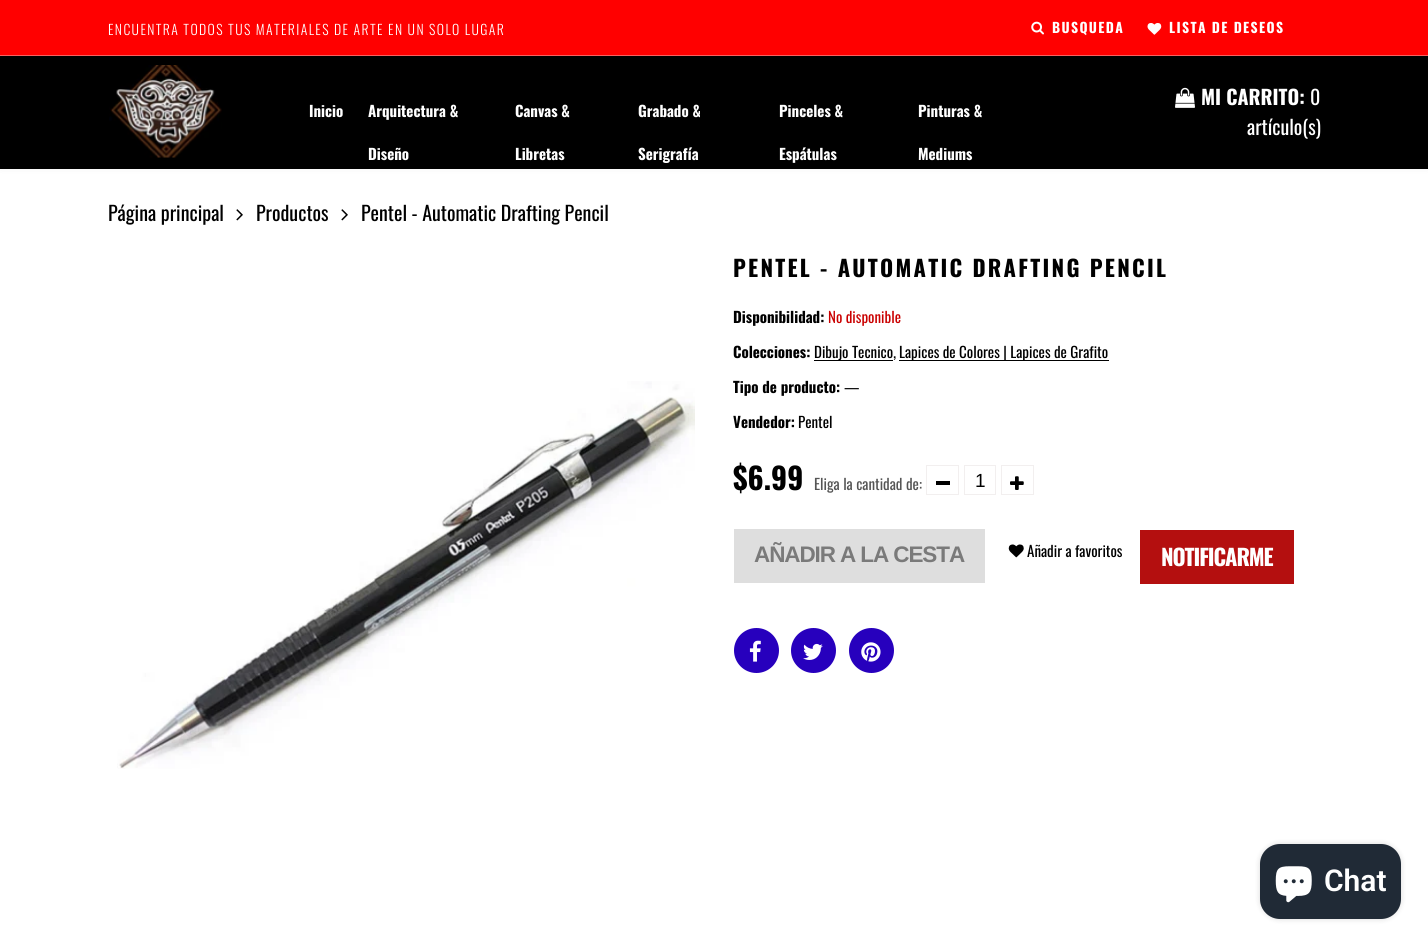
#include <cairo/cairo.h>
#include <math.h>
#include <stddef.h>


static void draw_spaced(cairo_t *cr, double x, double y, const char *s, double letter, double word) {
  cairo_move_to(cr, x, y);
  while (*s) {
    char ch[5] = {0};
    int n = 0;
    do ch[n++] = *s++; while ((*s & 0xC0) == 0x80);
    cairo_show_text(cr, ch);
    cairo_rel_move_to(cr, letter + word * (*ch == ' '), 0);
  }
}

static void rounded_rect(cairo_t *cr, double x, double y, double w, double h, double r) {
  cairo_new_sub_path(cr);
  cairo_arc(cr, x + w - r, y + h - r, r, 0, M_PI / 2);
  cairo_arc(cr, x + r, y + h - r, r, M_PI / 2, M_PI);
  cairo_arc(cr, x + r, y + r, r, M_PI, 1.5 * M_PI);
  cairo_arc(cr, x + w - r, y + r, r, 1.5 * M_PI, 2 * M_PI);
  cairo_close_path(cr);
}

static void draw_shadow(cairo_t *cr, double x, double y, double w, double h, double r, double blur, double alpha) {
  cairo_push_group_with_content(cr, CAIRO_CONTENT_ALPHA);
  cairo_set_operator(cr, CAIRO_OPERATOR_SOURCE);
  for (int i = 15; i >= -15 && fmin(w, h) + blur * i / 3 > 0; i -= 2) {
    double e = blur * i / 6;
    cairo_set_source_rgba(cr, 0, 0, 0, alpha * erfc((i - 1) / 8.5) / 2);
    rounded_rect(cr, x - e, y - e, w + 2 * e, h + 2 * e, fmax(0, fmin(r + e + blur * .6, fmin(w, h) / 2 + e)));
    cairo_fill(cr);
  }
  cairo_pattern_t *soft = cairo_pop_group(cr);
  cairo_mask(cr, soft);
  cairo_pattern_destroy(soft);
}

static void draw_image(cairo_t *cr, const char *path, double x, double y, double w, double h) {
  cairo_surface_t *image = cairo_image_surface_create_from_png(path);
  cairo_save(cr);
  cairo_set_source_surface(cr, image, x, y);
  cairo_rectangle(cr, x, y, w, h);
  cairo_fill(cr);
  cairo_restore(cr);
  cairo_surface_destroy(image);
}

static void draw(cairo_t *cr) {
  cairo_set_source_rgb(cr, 1, 1, 1);
  cairo_paint(cr);
  cairo_set_source_rgb(cr, 0, 0, 0);
  draw_shadow(cr, 0, 0, 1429, 169, 0, 3, 0.05);
  cairo_set_source_rgb(cr, 1, 0, 0);
  cairo_rectangle(cr, 0, 0, 1428, 55);
  cairo_fill(cr);
  cairo_set_source_rgb(cr, 250 / 255.0, 96 / 255.0, 96 / 255.0);
  cairo_rectangle(cr, 0, 55, 1428, 1);
  cairo_fill(cr);
  draw_image(cr, "images/1.png", 1031, 21, 13, 14);
  draw_image(cr, "images/2.png", 1147, 23, 15, 12);
  cairo_set_source_rgb(cr, 0, 0, 0);
  cairo_rectangle(cr, 0, 56, 1428, 113);
  cairo_fill(cr);
  draw_image(cr, "images/3.png", 109, 65, 113, 93);
  draw_image(cr, "images/4.png", 1175, 87, 20, 21);
  draw_image(cr, "images/5.png", 236, 209, 7, 12);
  draw_image(cr, "images/5.png", 341, 209, 7, 12);
  draw_image(cr, "images/6.png", 117, 381, 578, 388);
  cairo_rectangle(cr, 814, 360, 79, 1);
  cairo_fill(cr);
  cairo_rectangle(cr, 899, 360, 210, 1);
  cairo_fill(cr);
  cairo_rectangle(cr, 926.5, 465.5, 32, 29);
  cairo_set_source_rgb(cr, 242 / 255.0, 239 / 255.0, 239 / 255.0);
  cairo_set_line_width(cr, 1);
  cairo_stroke(cr);
  cairo_set_source_rgb(cr, 0, 0, 0);
  cairo_rectangle(cr, 936, 481, 14, 4);
  cairo_fill(cr);
  cairo_rectangle(cr, 964.5, 465.5, 31, 29);
  cairo_set_source_rgb(cr, 242 / 255.0, 239 / 255.0, 239 / 255.0);
  cairo_stroke(cr);
  cairo_rectangle(cr, 1001.5, 465.5, 32, 29);
  cairo_stroke(cr);
  draw_image(cr, "images/7.png", 1010, 476, 14, 14);
  cairo_set_source_rgb(cr, 222 / 255.0, 222 / 255.0, 222 / 255.0);
  cairo_rectangle(cr, 734, 529, 251, 54);
  cairo_fill(cr);
  draw_image(cr, "images/8.png", 1008, 544, 16, 14);
  cairo_set_source_rgb(cr, 180 / 255.0, 15 / 255.0, 15 / 255.0);
  cairo_rectangle(cr, 1140, 530, 154, 54);
  cairo_fill(cr);
  cairo_set_source_rgb(cr, 39 / 255.0, 0, 189 / 255.0);
  cairo_arc(cr, 756.5, 650.5, 22.5, 0, 2 * M_PI);
  cairo_fill(cr);
  draw_image(cr, "images/9.png", 749, 640, 12, 22);
  cairo_arc(cr, 813.5, 650.5, 22.5, 0, 2 * M_PI);
  cairo_fill(cr);
  draw_image(cr, "images/10.png", 803, 643, 20, 17);
  cairo_arc(cr, 871.5, 650.5, 22.5, 0, 2 * M_PI);
  cairo_fill(cr);
  draw_image(cr, "images/11.png", 861, 642, 20, 20);
  cairo_set_source_rgb(cr, 0, 0, 0);
  draw_shadow(cr, 1260, 844, 141, 75, 20, 3, 0.15);
  cairo_set_source_rgb(cr, 32 / 255.0, 42 / 255.0, 54 / 255.0);
  rounded_rect(cr, 1260, 844, 141, 75, 20);
  cairo_fill(cr);
  draw_image(cr, "images/12.png", 1275, 866, 37, 37);
  cairo_select_font_face(cr, "Oswald Light", CAIRO_FONT_SLANT_NORMAL, CAIRO_FONT_WEIGHT_NORMAL);
  cairo_set_font_size(cr, 13.75);
  cairo_set_source_rgb(cr, 1, 1, 1);
  draw_spaced(cr, 108, 35, "ENCUENTRA TODOS TUS MATERIALES DE ARTE EN UN SOLO LUGAR", 1.38, 0);
  cairo_select_font_face(cr, "Oswald", CAIRO_FONT_SLANT_NORMAL, CAIRO_FONT_WEIGHT_BOLD);
  draw_spaced(cr, 1052, 33, "BUSQUEDA", 1.38, 0);
  draw_spaced(cr, 1169, 33, "LISTA DE DESEOS", 1.38, 0);
  cairo_set_font_size(cr, 15);
  cairo_move_to(cr, 309, 117);
  cairo_show_text(cr, "Inicio");
  cairo_move_to(cr, 368, 117);
  cairo_show_text(cr, "Arquitectura &");
  cairo_move_to(cr, 368, 160);
  cairo_show_text(cr, "Diseño");
  cairo_move_to(cr, 515, 117);
  cairo_show_text(cr, "Canvas &");
  cairo_move_to(cr, 515, 160);
  cairo_show_text(cr, "Libretas");
  cairo_move_to(cr, 638, 117);
  cairo_show_text(cr, "Grabado &");
  cairo_move_to(cr, 638, 160);
  cairo_show_text(cr, "Serigrafía");
  cairo_move_to(cr, 779, 117);
  cairo_show_text(cr, "Pinceles &");
  cairo_move_to(cr, 779, 160);
  cairo_show_text(cr, "Espátulas");
  cairo_move_to(cr, 918, 117);
  cairo_show_text(cr, "Pinturas &");
  cairo_move_to(cr, 918, 160);
  cairo_show_text(cr, "Mediums");
  cairo_set_font_size(cr, 20);
  cairo_move_to(cr, 1201, 105);
  cairo_show_text(cr, "MI CARRITO:");
  cairo_select_font_face(cr, "Oswald", CAIRO_FONT_SLANT_NORMAL, CAIRO_FONT_WEIGHT_NORMAL);
  cairo_move_to(cr, 1310, 105);
  cairo_show_text(cr, "0");
  cairo_move_to(cr, 1247, 135);
  cairo_show_text(cr, "artículo(s)");
  cairo_set_source_rgb(cr, 0, 0, 0);
  cairo_move_to(cr, 108, 221);
  cairo_show_text(cr, "Página principal");
  cairo_move_to(cr, 256, 221);
  cairo_show_text(cr, "Productos");
  cairo_move_to(cr, 361, 221);
  cairo_show_text(cr, "Pentel - Automatic Drafting Pencil");
  cairo_select_font_face(cr, "Oswald", CAIRO_FONT_SLANT_NORMAL, CAIRO_FONT_WEIGHT_BOLD);
  cairo_set_font_size(cr, 22.5);
  draw_spaced(cr, 733, 277, "PENTEL - AUTOMATIC DRAFTING PENCIL", 2.25, 0);
  cairo_set_font_size(cr, 15);
  cairo_move_to(cr, 733, 323);
  cairo_show_text(cr, "Disponibilidad:");
  cairo_select_font_face(cr, "Oswald", CAIRO_FONT_SLANT_NORMAL, CAIRO_FONT_WEIGHT_NORMAL);
  cairo_set_source_rgb(cr, 202 / 255.0, 0, 0);
  cairo_move_to(cr, 828, 323);
  cairo_show_text(cr, "No disponible");
  cairo_select_font_face(cr, "Oswald", CAIRO_FONT_SLANT_NORMAL, CAIRO_FONT_WEIGHT_BOLD);
  cairo_set_source_rgb(cr, 0, 0, 0);
  cairo_move_to(cr, 733, 358);
  cairo_show_text(cr, "Colecciones:");
  cairo_select_font_face(cr, "Oswald", CAIRO_FONT_SLANT_NORMAL, CAIRO_FONT_WEIGHT_NORMAL);
  cairo_move_to(cr, 814, 358);
  cairo_show_text(cr, "Dibujo Tecnico,");
  cairo_move_to(cr, 899, 358);
  cairo_show_text(cr, "Lapices de Colores | Lapices de Grafito");
  cairo_select_font_face(cr, "Oswald", CAIRO_FONT_SLANT_NORMAL, CAIRO_FONT_WEIGHT_BOLD);
  cairo_move_to(cr, 733, 393);
  cairo_show_text(cr, "Tipo de producto:");
  cairo_select_font_face(cr, "Oswald", CAIRO_FONT_SLANT_NORMAL, CAIRO_FONT_WEIGHT_NORMAL);
  cairo_move_to(cr, 844, 393);
  cairo_show_text(cr, "—");
  cairo_select_font_face(cr, "Oswald", CAIRO_FONT_SLANT_NORMAL, CAIRO_FONT_WEIGHT_BOLD);
  cairo_move_to(cr, 733, 428);
  cairo_show_text(cr, "Vendedor:");
  cairo_select_font_face(cr, "Oswald", CAIRO_FONT_SLANT_NORMAL, CAIRO_FONT_WEIGHT_NORMAL);
  cairo_move_to(cr, 798, 428);
  cairo_show_text(cr, "Pentel");
  cairo_select_font_face(cr, "Oswald", CAIRO_FONT_SLANT_NORMAL, CAIRO_FONT_WEIGHT_BOLD);
  cairo_set_font_size(cr, 30);
  cairo_move_to(cr, 733, 490);
  cairo_show_text(cr, "$6.99");
  cairo_select_font_face(cr, "Oswald", CAIRO_FONT_SLANT_NORMAL, CAIRO_FONT_WEIGHT_NORMAL);
  cairo_set_font_size(cr, 15);
  cairo_set_source_rgb(cr, 85 / 255.0, 85 / 255.0, 85 / 255.0);
  cairo_move_to(cr, 814, 490);
  cairo_show_text(cr, "Eliga la cantidad de:");
  cairo_select_font_face(cr, "Liberation Sans", CAIRO_FONT_SLANT_NORMAL, CAIRO_FONT_WEIGHT_NORMAL);
  cairo_set_font_size(cr, 19);
  cairo_set_source_rgb(cr, 0, 0, 0);
  cairo_move_to(cr, 975, 487);
  cairo_show_text(cr, "1");
  cairo_select_font_face(cr, "Liberation Sans", CAIRO_FONT_SLANT_NORMAL, CAIRO_FONT_WEIGHT_BOLD);
  cairo_set_font_size(cr, 22.5);
  cairo_set_source_rgb(cr, 122 / 255.0, 122 / 255.0, 122 / 255.0);
  draw_spaced(cr, 754, 562, "AÑADIR A LA CESTA", -1.1, 0);
  cairo_select_font_face(cr, "Oswald", CAIRO_FONT_SLANT_NORMAL, CAIRO_FONT_WEIGHT_NORMAL);
  cairo_set_font_size(cr, 15);
  cairo_set_source_rgb(cr, 0, 0, 0);
  cairo_move_to(cr, 1027, 557);
  cairo_show_text(cr, "Añadir a favoritos");
  cairo_select_font_face(cr, "Oswald", CAIRO_FONT_SLANT_NORMAL, CAIRO_FONT_WEIGHT_BOLD);
  cairo_set_font_size(cr, 22.5);
  cairo_set_source_rgb(cr, 1, 1, 1);
  draw_spaced(cr, 1161, 566, "NOTIFICARME", -1.1, 0);
  cairo_select_font_face(cr, "Roboto SemiBold", CAIRO_FONT_SLANT_NORMAL, CAIRO_FONT_WEIGHT_NORMAL);
  cairo_set_font_size(cr, 30);
  cairo_move_to(cr, 1324, 891);
  cairo_show_text(cr, "Chat");
}

int main(void) {
  cairo_surface_t *surface = cairo_image_surface_create(CAIRO_FORMAT_RGB24, 1428, 945);
  cairo_t *cr = cairo_create(surface);
  cairo_font_options_t *options = cairo_font_options_create();
  cairo_font_options_set_hint_metrics(options, CAIRO_HINT_METRICS_OFF);
  cairo_font_options_set_hint_style(options, CAIRO_HINT_STYLE_NONE);
  cairo_set_font_options(cr, options);
  cairo_set_miter_limit(cr, 4);
  draw(cr);
  cairo_surface_write_to_png(surface, "out.png");
  cairo_font_options_destroy(options);
  cairo_destroy(cr);
  cairo_surface_destroy(surface);
  return 0;
}
